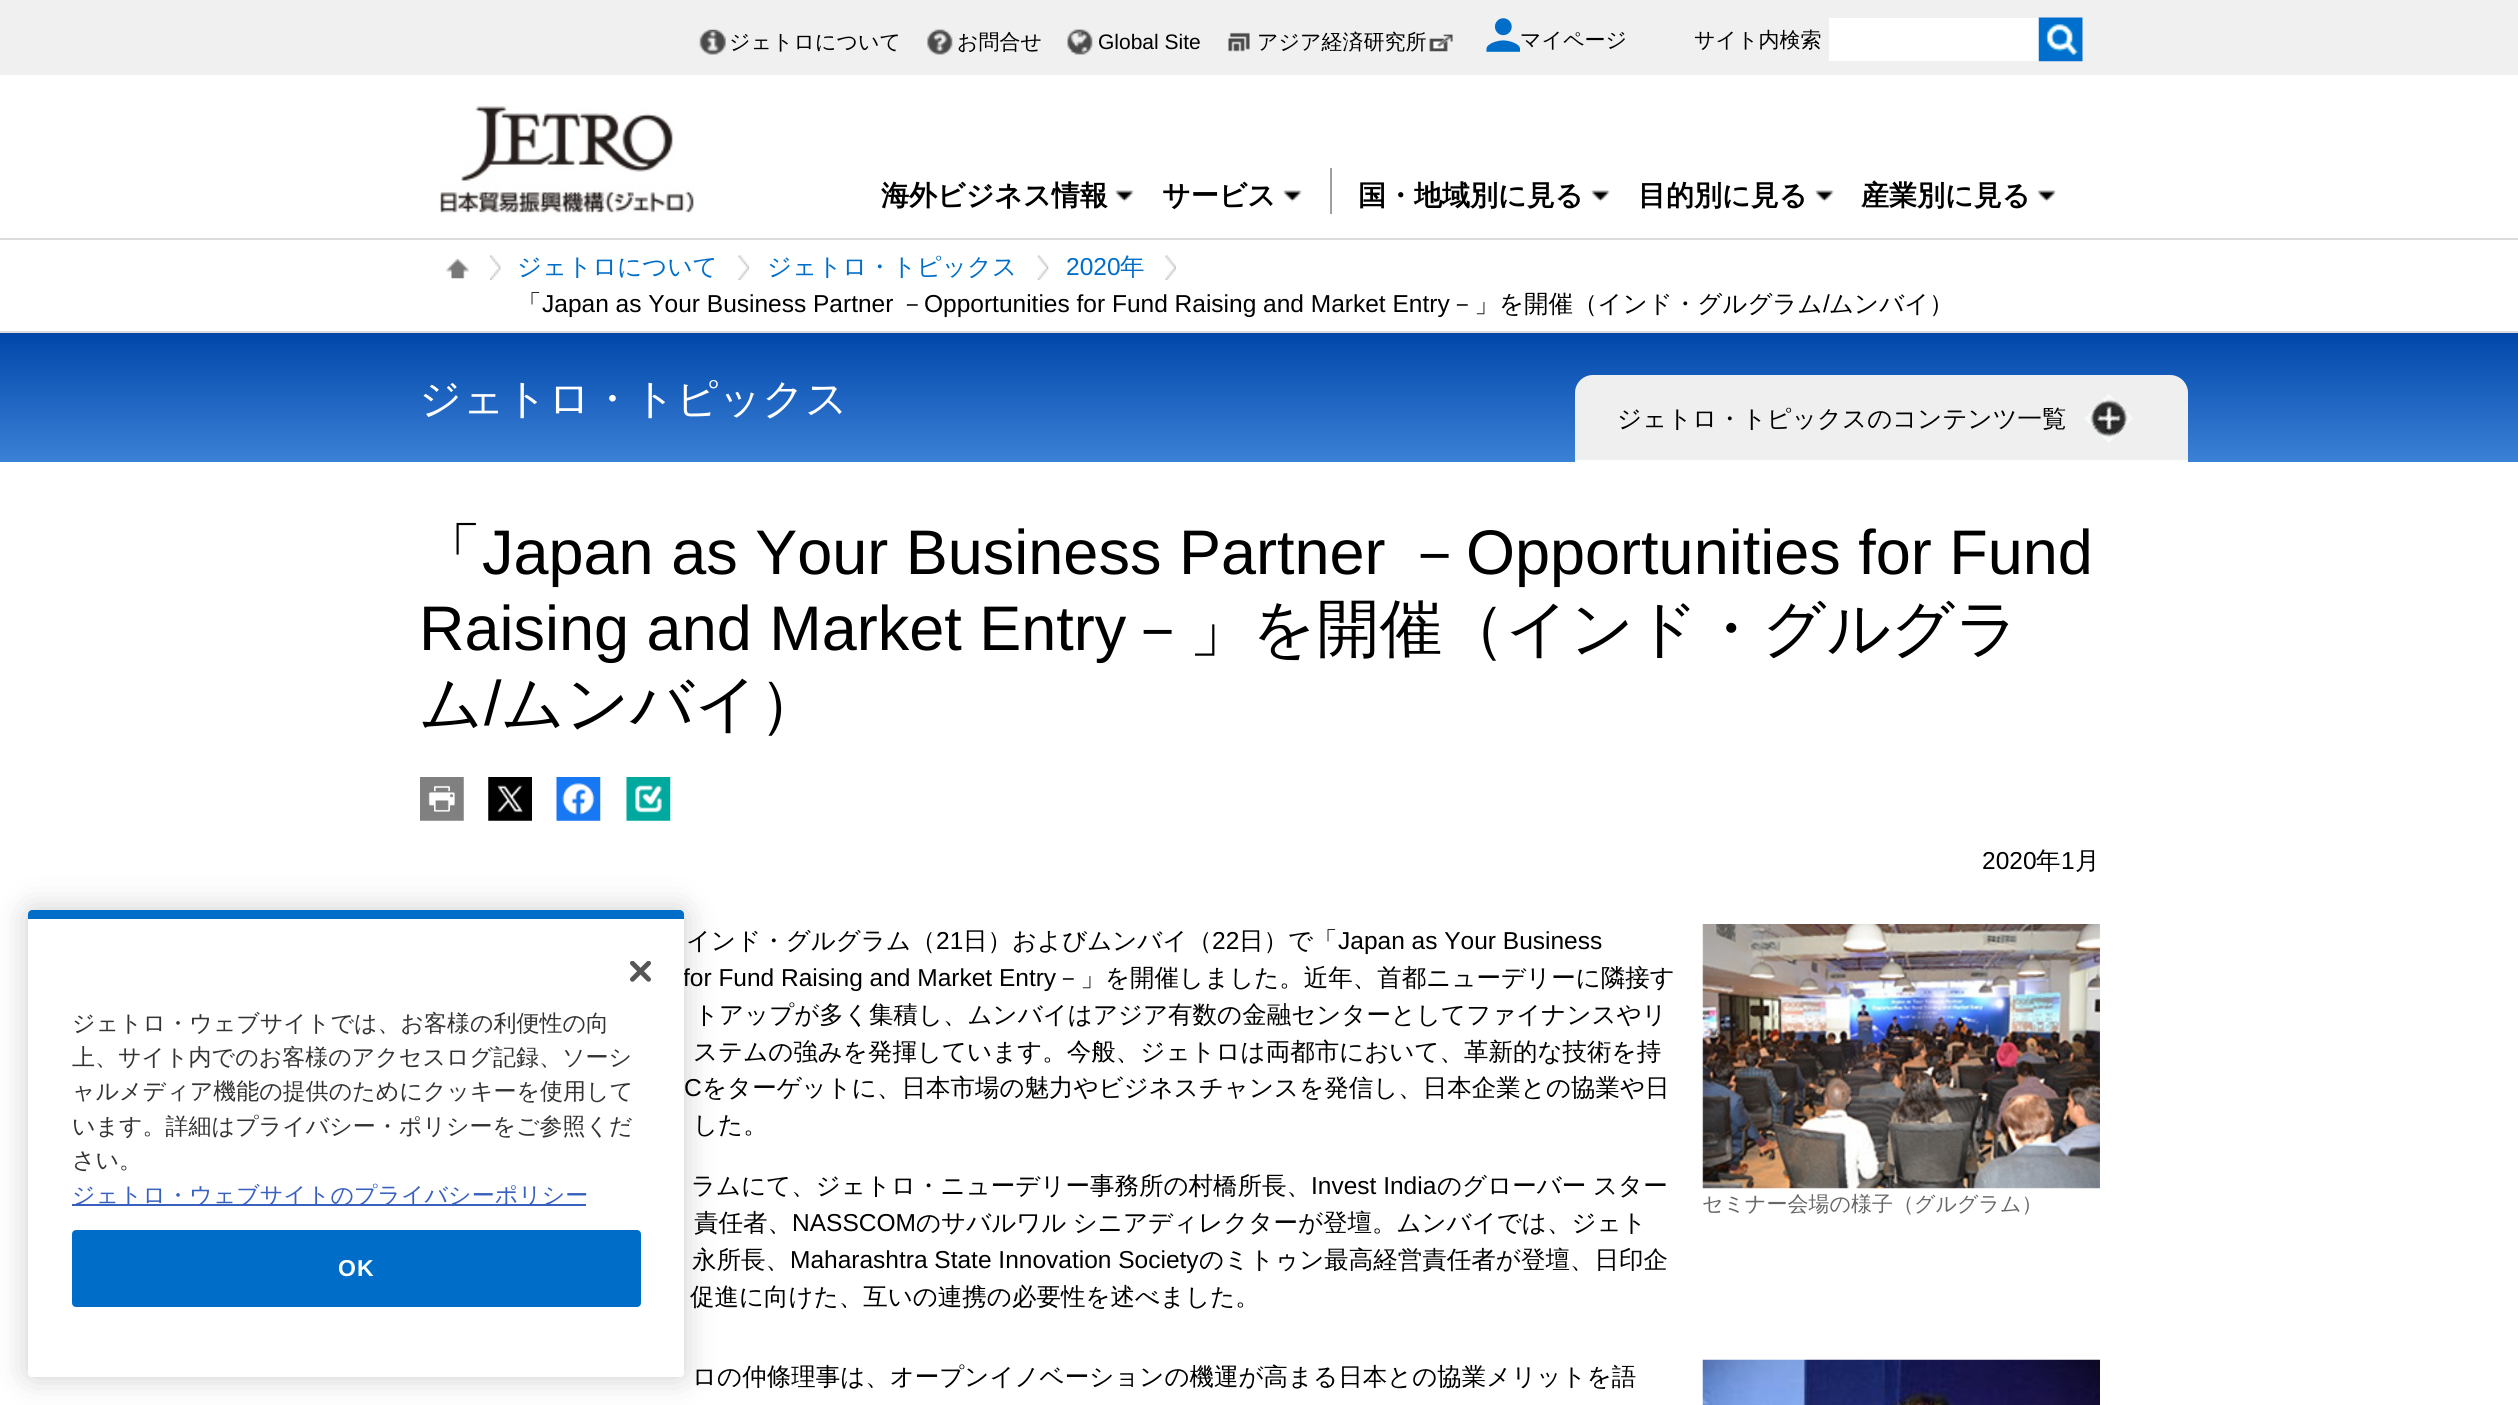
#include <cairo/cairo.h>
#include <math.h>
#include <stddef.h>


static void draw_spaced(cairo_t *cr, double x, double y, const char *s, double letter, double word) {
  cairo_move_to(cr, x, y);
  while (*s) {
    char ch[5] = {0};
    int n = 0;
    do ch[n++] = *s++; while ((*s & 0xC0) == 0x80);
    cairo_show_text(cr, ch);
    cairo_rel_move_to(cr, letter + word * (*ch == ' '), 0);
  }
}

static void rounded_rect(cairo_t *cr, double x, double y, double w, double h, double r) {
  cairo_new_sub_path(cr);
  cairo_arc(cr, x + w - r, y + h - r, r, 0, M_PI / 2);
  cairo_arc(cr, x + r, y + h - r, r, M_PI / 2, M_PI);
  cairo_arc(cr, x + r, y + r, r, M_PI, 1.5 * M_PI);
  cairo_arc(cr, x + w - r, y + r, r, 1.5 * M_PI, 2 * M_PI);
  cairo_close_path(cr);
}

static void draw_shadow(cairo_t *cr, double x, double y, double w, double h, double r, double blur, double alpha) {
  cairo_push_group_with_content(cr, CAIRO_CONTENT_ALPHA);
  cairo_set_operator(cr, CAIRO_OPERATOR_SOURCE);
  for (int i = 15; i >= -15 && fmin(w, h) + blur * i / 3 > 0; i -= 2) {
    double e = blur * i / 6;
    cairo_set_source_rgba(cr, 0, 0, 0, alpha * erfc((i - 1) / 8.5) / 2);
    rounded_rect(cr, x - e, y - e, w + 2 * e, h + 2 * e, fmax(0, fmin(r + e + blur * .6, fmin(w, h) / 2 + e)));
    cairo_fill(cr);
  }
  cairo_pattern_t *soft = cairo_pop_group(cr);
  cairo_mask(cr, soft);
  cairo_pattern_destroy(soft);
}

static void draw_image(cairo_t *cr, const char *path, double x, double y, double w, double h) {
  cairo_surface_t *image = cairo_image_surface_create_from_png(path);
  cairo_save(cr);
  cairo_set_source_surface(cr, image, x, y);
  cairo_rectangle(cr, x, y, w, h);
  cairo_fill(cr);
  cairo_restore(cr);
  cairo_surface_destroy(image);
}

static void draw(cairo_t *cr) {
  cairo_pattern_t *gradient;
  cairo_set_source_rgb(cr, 1, 1, 1);
  cairo_paint(cr);
  cairo_set_source_rgb(cr, 0, 0, 0);
  draw_shadow(cr, 28, 910, 656, 467, 4, 16, 0.2);
  cairo_set_source_rgb(cr, 240 / 255.0, 240 / 255.0, 240 / 255.0);
  cairo_rectangle(cr, 0, 0, 2518, 75);
  cairo_fill(cr);
  draw_image(cr, "images/2.png", 699, 29, 27, 26);
  draw_image(cr, "images/3.png", 927, 29, 26, 26);
  draw_image(cr, "images/4.png", 1067, 29, 26, 26);
  draw_image(cr, "images/5.png", 1228, 32, 22, 20);
  draw_image(cr, "images/6.png", 1429, 34, 24, 18);
  draw_image(cr, "images/7.png", 1486, 18, 34, 34);
  cairo_set_source_rgb(cr, 1, 1, 1);
  cairo_rectangle(cr, 1829, 18, 210, 43);
  cairo_fill(cr);
  draw_image(cr, "images/8.png", 2038, 17, 45, 45);
  draw_image(cr, "images/9.png", 440, 106, 254, 107);
  draw_image(cr, "images/10.png", 1114, 190, 21, 12);
  cairo_set_source_rgb(cr, 159 / 255.0, 159 / 255.0, 159 / 255.0);
  cairo_rectangle(cr, 1330, 168, 2, 46);
  cairo_fill(cr);
  draw_image(cr, "images/11.png", 1282, 190, 21, 12);
  draw_image(cr, "images/10.png", 1590, 190, 21, 12);
  draw_image(cr, "images/12.png", 1814, 190, 21, 12);
  draw_image(cr, "images/13.png", 2037, 190, 20, 12);
  cairo_set_source_rgb(cr, 220 / 255.0, 220 / 255.0, 220 / 255.0);
  cairo_rectangle(cr, 0, 238, 2518, 2);
  cairo_fill(cr);
  cairo_rectangle(cr, 0, 331, 2518, 2);
  cairo_fill(cr);
  draw_image(cr, "images/14.png", 490, 255, 11, 25);
  draw_image(cr, "images/15.png", 446, 259, 23, 20);
  draw_image(cr, "images/16.png", 738, 255, 11, 25);
  draw_image(cr, "images/17.png", 1037, 255, 12, 25);
  draw_image(cr, "images/18.png", 1165, 255, 11, 25);
  gradient = cairo_pattern_create_linear(1259, 332, 1259, 462);
  cairo_pattern_add_color_stop_rgba(gradient, 0, 0, 70 / 255.0, 170 / 255.0, 1);
  cairo_pattern_add_color_stop_rgba(gradient, 1, 59 / 255.0, 129 / 255.0, 214 / 255.0, 1);
  cairo_set_source(cr, gradient);
  cairo_pattern_destroy(gradient);
  cairo_rectangle(cr, 0, 333, 2518, 129);
  cairo_fill(cr);
  cairo_set_source_rgb(cr, 240 / 255.0, 239 / 255.0, 240 / 255.0);
  cairo_new_path(cr);
  cairo_move_to(cr, 1593, 375);
  cairo_line_to(cr, 2170, 375);
  cairo_curve_to(cr, 2180, 375, 2188, 383, 2188, 393);
  cairo_line_to(cr, 2188, 462);
  cairo_line_to(cr, 1575, 462);
  cairo_line_to(cr, 1575, 393);
  cairo_curve_to(cr, 1575, 383, 1583, 375, 1593, 375);
  cairo_close_path(cr);
  cairo_fill(cr);
  cairo_set_source_rgb(cr, 1, 1, 1);
  cairo_rectangle(cr, 1575, 460, 613, 2);
  cairo_fill(cr);
  draw_image(cr, "images/19.png", 2084, 394, 49, 49);
  draw_image(cr, "images/20.png", 420, 777, 44, 44);
  draw_image(cr, "images/21.png", 488, 777, 44, 44);
  draw_image(cr, "images/22.png", 556, 777, 45, 44);
  draw_image(cr, "images/23.png", 626, 777, 45, 44);
  draw_image(cr, "images/24.png", 1702, 924, 398, 265);
  draw_image(cr, "images/25.png", 1702, 1359, 398, 46);
  cairo_select_font_face(cr, "WenQuanYi Zen Hei Medium", CAIRO_FONT_SLANT_NORMAL, CAIRO_FONT_WEIGHT_NORMAL);
  cairo_set_font_size(cr, 21);
  cairo_set_source_rgb(cr, 0, 0, 0);
  cairo_move_to(cr, 729, 49);
  cairo_show_text(cr, "ジェトロについて");
  cairo_move_to(cr, 957, 49);
  cairo_show_text(cr, "お問合せ");
  cairo_select_font_face(cr, "Liberation Sans", CAIRO_FONT_SLANT_NORMAL, CAIRO_FONT_WEIGHT_NORMAL);
  cairo_move_to(cr, 1098, 49);
  cairo_show_text(cr, "Global Site");
  cairo_select_font_face(cr, "WenQuanYi Zen Hei Medium", CAIRO_FONT_SLANT_NORMAL, CAIRO_FONT_WEIGHT_NORMAL);
  cairo_move_to(cr, 1257, 49);
  cairo_show_text(cr, "アジア経済研究所");
  cairo_move_to(cr, 1520, 47);
  cairo_show_text(cr, "マイページ");
  cairo_move_to(cr, 1694, 47);
  cairo_show_text(cr, "サイト内検索");
  cairo_select_font_face(cr, "WenQuanYi Zen Hei", CAIRO_FONT_SLANT_NORMAL, CAIRO_FONT_WEIGHT_BOLD);
  cairo_set_font_size(cr, 28);
  cairo_move_to(cr, 881, 205);
  cairo_show_text(cr, "海外ビジネス情報");
  cairo_move_to(cr, 1162, 205);
  cairo_show_text(cr, "サービス");
  cairo_move_to(cr, 1358, 205);
  cairo_show_text(cr, "国・地域別に見る");
  cairo_move_to(cr, 1638, 205);
  cairo_show_text(cr, "目的別に見る");
  cairo_move_to(cr, 1861, 205);
  cairo_show_text(cr, "産業別に見る");
  cairo_select_font_face(cr, "WenQuanYi Zen Hei Medium", CAIRO_FONT_SLANT_NORMAL, CAIRO_FONT_WEIGHT_NORMAL);
  cairo_set_font_size(cr, 24.5);
  cairo_set_source_rgb(cr, 0, 110 / 255.0, 200 / 255.0);
  cairo_move_to(cr, 517, 275);
  cairo_show_text(cr, "ジェトロについて");
  cairo_move_to(cr, 767, 275);
  cairo_show_text(cr, "ジェトロ・トピックス");
  cairo_select_font_face(cr, "Liberation Sans", CAIRO_FONT_SLANT_NORMAL, CAIRO_FONT_WEIGHT_NORMAL);
  cairo_move_to(cr, 1066, 275);
  cairo_show_text(cr, "2020");
  cairo_select_font_face(cr, "WenQuanYi Zen Hei Medium", CAIRO_FONT_SLANT_NORMAL, CAIRO_FONT_WEIGHT_NORMAL);
  cairo_move_to(cr, 1120, 275);
  cairo_show_text(cr, "年");
  cairo_set_source_rgb(cr, 0, 0, 0);
  cairo_move_to(cr, 517, 312);
  cairo_show_text(cr, "「");
  cairo_select_font_face(cr, "Liberation Sans", CAIRO_FONT_SLANT_NORMAL, CAIRO_FONT_WEIGHT_NORMAL);
  cairo_move_to(cr, 542, 312);
  cairo_show_text(cr, "Japan as Your Business Partner");
  cairo_select_font_face(cr, "WenQuanYi Zen Hei Medium", CAIRO_FONT_SLANT_NORMAL, CAIRO_FONT_WEIGHT_NORMAL);
  cairo_move_to(cr, 900, 312);
  cairo_show_text(cr, "－");
  cairo_select_font_face(cr, "Liberation Sans", CAIRO_FONT_SLANT_NORMAL, CAIRO_FONT_WEIGHT_NORMAL);
  cairo_move_to(cr, 924, 312);
  cairo_show_text(cr, "Opportunities for Fund Raising and Market Entry");
  cairo_select_font_face(cr, "WenQuanYi Zen Hei Medium", CAIRO_FONT_SLANT_NORMAL, CAIRO_FONT_WEIGHT_NORMAL);
  cairo_move_to(cr, 1450, 312);
  cairo_show_text(cr, "－」を開催（インド・グルグラム");
  cairo_select_font_face(cr, "Liberation Sans", CAIRO_FONT_SLANT_NORMAL, CAIRO_FONT_WEIGHT_NORMAL);
  cairo_move_to(cr, 1823, 312);
  cairo_show_text(cr, "/");
  cairo_select_font_face(cr, "WenQuanYi Zen Hei Medium", CAIRO_FONT_SLANT_NORMAL, CAIRO_FONT_WEIGHT_NORMAL);
  cairo_move_to(cr, 1829, 312);
  cairo_show_text(cr, "ムンバイ）");
  cairo_set_font_size(cr, 42);
  cairo_set_source_rgb(cr, 1, 1, 1);
  cairo_move_to(cr, 419, 413);
  cairo_show_text(cr, "ジェトロ・トピックス");
  cairo_set_font_size(cr, 24.5);
  cairo_set_source_rgb(cr, 0, 0, 0);
  cairo_move_to(cr, 1617, 427);
  cairo_show_text(cr, "ジェトロ・トピックスのコンテンツ一覧");
  cairo_set_font_size(cr, 63);
  cairo_move_to(cr, 419, 574);
  cairo_show_text(cr, "「");
  cairo_select_font_face(cr, "Liberation Sans", CAIRO_FONT_SLANT_NORMAL, CAIRO_FONT_WEIGHT_NORMAL);
  cairo_move_to(cr, 482, 574);
  cairo_show_text(cr, "Japan as Your Business Partner");
  cairo_select_font_face(cr, "WenQuanYi Zen Hei Medium", CAIRO_FONT_SLANT_NORMAL, CAIRO_FONT_WEIGHT_NORMAL);
  cairo_move_to(cr, 1403, 574);
  cairo_show_text(cr, "－");
  cairo_select_font_face(cr, "Liberation Sans", CAIRO_FONT_SLANT_NORMAL, CAIRO_FONT_WEIGHT_NORMAL);
  cairo_move_to(cr, 1466, 574);
  cairo_show_text(cr, "Opportunities for Fund");
  cairo_move_to(cr, 419, 650);
  cairo_show_text(cr, "Raising and Market Entry");
  cairo_select_font_face(cr, "WenQuanYi Zen Hei Medium", CAIRO_FONT_SLANT_NORMAL, CAIRO_FONT_WEIGHT_NORMAL);
  cairo_move_to(cr, 1126, 650);
  cairo_show_text(cr, "－」を開催（インド・グルグラ");
  cairo_move_to(cr, 419, 725);
  cairo_show_text(cr, "ム");
  cairo_select_font_face(cr, "Liberation Sans", CAIRO_FONT_SLANT_NORMAL, CAIRO_FONT_WEIGHT_NORMAL);
  cairo_move_to(cr, 484, 725);
  cairo_show_text(cr, "/");
  cairo_select_font_face(cr, "WenQuanYi Zen Hei Medium", CAIRO_FONT_SLANT_NORMAL, CAIRO_FONT_WEIGHT_NORMAL);
  cairo_move_to(cr, 501, 725);
  cairo_show_text(cr, "ムンバイ）");
  cairo_select_font_face(cr, "Liberation Sans", CAIRO_FONT_SLANT_NORMAL, CAIRO_FONT_WEIGHT_NORMAL);
  cairo_set_font_size(cr, 24.5);
  cairo_move_to(cr, 1982, 869);
  cairo_show_text(cr, "2020");
  cairo_select_font_face(cr, "WenQuanYi Zen Hei Medium", CAIRO_FONT_SLANT_NORMAL, CAIRO_FONT_WEIGHT_NORMAL);
  cairo_move_to(cr, 2036, 869);
  cairo_show_text(cr, "年");
  cairo_select_font_face(cr, "Liberation Sans", CAIRO_FONT_SLANT_NORMAL, CAIRO_FONT_WEIGHT_NORMAL);
  cairo_move_to(cr, 2061, 869);
  cairo_show_text(cr, "1");
  cairo_select_font_face(cr, "WenQuanYi Zen Hei Medium", CAIRO_FONT_SLANT_NORMAL, CAIRO_FONT_WEIGHT_NORMAL);
  cairo_move_to(cr, 2075, 869);
  cairo_show_text(cr, "月");
  cairo_move_to(cr, 686, 949);
  cairo_show_text(cr, "インド・グルグラム（");
  cairo_select_font_face(cr, "Liberation Sans", CAIRO_FONT_SLANT_NORMAL, CAIRO_FONT_WEIGHT_NORMAL);
  cairo_move_to(cr, 936, 949);
  cairo_show_text(cr, "21");
  cairo_select_font_face(cr, "WenQuanYi Zen Hei Medium", CAIRO_FONT_SLANT_NORMAL, CAIRO_FONT_WEIGHT_NORMAL);
  cairo_move_to(cr, 963, 949);
  cairo_show_text(cr, "日）およびムンバイ（");
  cairo_select_font_face(cr, "Liberation Sans", CAIRO_FONT_SLANT_NORMAL, CAIRO_FONT_WEIGHT_NORMAL);
  cairo_move_to(cr, 1212, 949);
  cairo_show_text(cr, "22");
  cairo_select_font_face(cr, "WenQuanYi Zen Hei Medium", CAIRO_FONT_SLANT_NORMAL, CAIRO_FONT_WEIGHT_NORMAL);
  cairo_move_to(cr, 1239, 949);
  cairo_show_text(cr, "日）で「");
  cairo_select_font_face(cr, "Liberation Sans", CAIRO_FONT_SLANT_NORMAL, CAIRO_FONT_WEIGHT_NORMAL);
  cairo_move_to(cr, 1338, 949);
  cairo_show_text(cr, "Japan as Your Business");
  cairo_move_to(cr, 683, 986);
  cairo_show_text(cr, "for Fund Raising and Market Entry");
  cairo_set_source_rgb(cr, 1, 1, 1);
  rounded_rect(cr, 28, 910, 656, 467, 4);
  cairo_fill(cr);
  draw_image(cr, "images/1.png", 630, 961, 21, 21);
  cairo_set_source_rgb(cr, 0, 110 / 255.0, 200 / 255.0);
  rounded_rect(cr, 73, 1231, 567, 75, 3);
  cairo_fill_preserve(cr);
  cairo_stroke(cr);
  cairo_select_font_face(cr, "Liberation Sans", CAIRO_FONT_SLANT_NORMAL, CAIRO_FONT_WEIGHT_BOLD);
  cairo_set_font_size(cr, 23);
  cairo_set_source_rgb(cr, 1, 1, 1);
  draw_spaced(cr, 338, 1276, "OK", 1, 0);
  cairo_set_source_rgb(cr, 56 / 255.0, 96 / 255.0, 190 / 255.0);
  cairo_rectangle(cr, 72, 1204, 514, 2);
  cairo_fill(cr);
  cairo_select_font_face(cr, "WenQuanYi Zen Hei Medium", CAIRO_FONT_SLANT_NORMAL, CAIRO_FONT_WEIGHT_NORMAL);
  cairo_move_to(cr, 72, 1203);
  cairo_show_text(cr, "ジェトロ・ウェブサイトのプライバシーポリシー");
  cairo_set_source_rgb(cr, 51 / 255.0, 51 / 255.0, 51 / 255.0);
  cairo_move_to(cr, 72, 1168);
  cairo_show_text(cr, "さい。");
  cairo_move_to(cr, 72, 1134);
  cairo_show_text(cr, "います。詳細はプライバシー・ポリシーをご参照くだ");
  cairo_move_to(cr, 72, 1099);
  cairo_show_text(cr, "ャルメディア機能の提供のためにクッキーを使用して");
  cairo_move_to(cr, 72, 1065);
  cairo_show_text(cr, "上、サイト内でのお客様のアクセスログ記録、ソーシ");
  cairo_move_to(cr, 72, 1031);
  cairo_show_text(cr, "ジェトロ・ウェブサイトでは、お客様の利便性の向");
  cairo_set_source_rgb(cr, 0, 110 / 255.0, 200 / 255.0);
  cairo_new_path(cr);
  cairo_move_to(cr, 32, 910);
  cairo_line_to(cr, 680, 910);
  cairo_curve_to(cr, 682, 910, 684, 912, 684, 914);
  cairo_line_to(cr, 684, 919);
  cairo_line_to(cr, 28, 919);
  cairo_line_to(cr, 28, 914);
  cairo_curve_to(cr, 28, 912, 30, 910, 32, 910);
  cairo_close_path(cr);
  cairo_fill(cr);
  cairo_set_font_size(cr, 24.5);
  cairo_set_source_rgb(cr, 0, 0, 0);
  cairo_move_to(cr, 1056, 986);
  cairo_show_text(cr, "－」を開催しました。近年、首都ニューデリーに隣接す");
  cairo_move_to(cr, 694, 1023);
  cairo_show_text(cr, "トアップが多く集積し、ムンバイはアジア有数の金融センターとしてファイナンスやリ");
  cairo_move_to(cr, 693, 1060);
  cairo_show_text(cr, "ステムの強みを発揮しています。今般、ジェトロは両都市において、革新的な技術を持");
  cairo_select_font_face(cr, "Liberation Sans", CAIRO_FONT_SLANT_NORMAL, CAIRO_FONT_WEIGHT_NORMAL);
  cairo_move_to(cr, 684, 1096);
  cairo_show_text(cr, "C");
  cairo_select_font_face(cr, "WenQuanYi Zen Hei Medium", CAIRO_FONT_SLANT_NORMAL, CAIRO_FONT_WEIGHT_NORMAL);
  cairo_move_to(cr, 702, 1096);
  cairo_show_text(cr, "をターゲットに、日本市場の魅力やビジネスチャンスを発信し、日本企業との協業や日");
  cairo_move_to(cr, 693, 1133);
  cairo_show_text(cr, "した。");
  cairo_move_to(cr, 691, 1194);
  cairo_show_text(cr, "ラムにて、ジェトロ・ニューデリー事務所の村橋所長、");
  cairo_select_font_face(cr, "Liberation Sans", CAIRO_FONT_SLANT_NORMAL, CAIRO_FONT_WEIGHT_NORMAL);
  cairo_move_to(cr, 1311, 1194);
  cairo_show_text(cr, "Invest India");
  cairo_select_font_face(cr, "WenQuanYi Zen Hei Medium", CAIRO_FONT_SLANT_NORMAL, CAIRO_FONT_WEIGHT_NORMAL);
  cairo_move_to(cr, 1437, 1194);
  cairo_show_text(cr, "のグローバー");
  cairo_move_to(cr, 1593, 1194);
  cairo_show_text(cr, "スター");
  cairo_move_to(cr, 694, 1231);
  cairo_show_text(cr, "責任者、");
  cairo_select_font_face(cr, "Liberation Sans", CAIRO_FONT_SLANT_NORMAL, CAIRO_FONT_WEIGHT_NORMAL);
  cairo_move_to(cr, 792, 1231);
  cairo_show_text(cr, "NASSCOM");
  cairo_select_font_face(cr, "WenQuanYi Zen Hei Medium", CAIRO_FONT_SLANT_NORMAL, CAIRO_FONT_WEIGHT_NORMAL);
  draw_spaced(cr, 916, 1231, "のサバルワル シニアディレクターが登壇。ムンバイでは、ジェト", 0, -1);
  cairo_move_to(cr, 692, 1268);
  cairo_show_text(cr, "永所長、");
  cairo_select_font_face(cr, "Liberation Sans", CAIRO_FONT_SLANT_NORMAL, CAIRO_FONT_WEIGHT_NORMAL);
  cairo_move_to(cr, 790, 1268);
  cairo_show_text(cr, "Maharashtra State Innovation Society");
  cairo_select_font_face(cr, "WenQuanYi Zen Hei Medium", CAIRO_FONT_SLANT_NORMAL, CAIRO_FONT_WEIGHT_NORMAL);
  cairo_move_to(cr, 1199, 1268);
  cairo_show_text(cr, "のミトゥン最高経営責任者が登壇、日印企");
  cairo_move_to(cr, 690, 1305);
  cairo_show_text(cr, "促進に向けた、互いの連携の必要性を述べました。");
  cairo_set_font_size(cr, 21);
  cairo_set_source_rgb(cr, 103 / 255.0, 103 / 255.0, 103 / 255.0);
  cairo_move_to(cr, 1702, 1211);
  cairo_show_text(cr, "セミナー会場の様子（グルグラム）");
  cairo_set_font_size(cr, 24.5);
  cairo_set_source_rgb(cr, 0, 0, 0);
  cairo_move_to(cr, 692, 1385);
  cairo_show_text(cr, "ロの仲條理事は、オープンイノベーションの機運が高まる日本との協業メリットを語");
}

int main(void) {
  cairo_surface_t *surface = cairo_image_surface_create(CAIRO_FORMAT_RGB24, 2518, 1405);
  cairo_t *cr = cairo_create(surface);
  cairo_font_options_t *options = cairo_font_options_create();
  cairo_font_options_set_hint_metrics(options, CAIRO_HINT_METRICS_OFF);
  cairo_font_options_set_hint_style(options, CAIRO_HINT_STYLE_NONE);
  cairo_set_font_options(cr, options);
  cairo_set_miter_limit(cr, 4);
  draw(cr);
  cairo_surface_write_to_png(surface, "out.png");
  cairo_font_options_destroy(options);
  cairo_destroy(cr);
  cairo_surface_destroy(surface);
  return 0;
}
